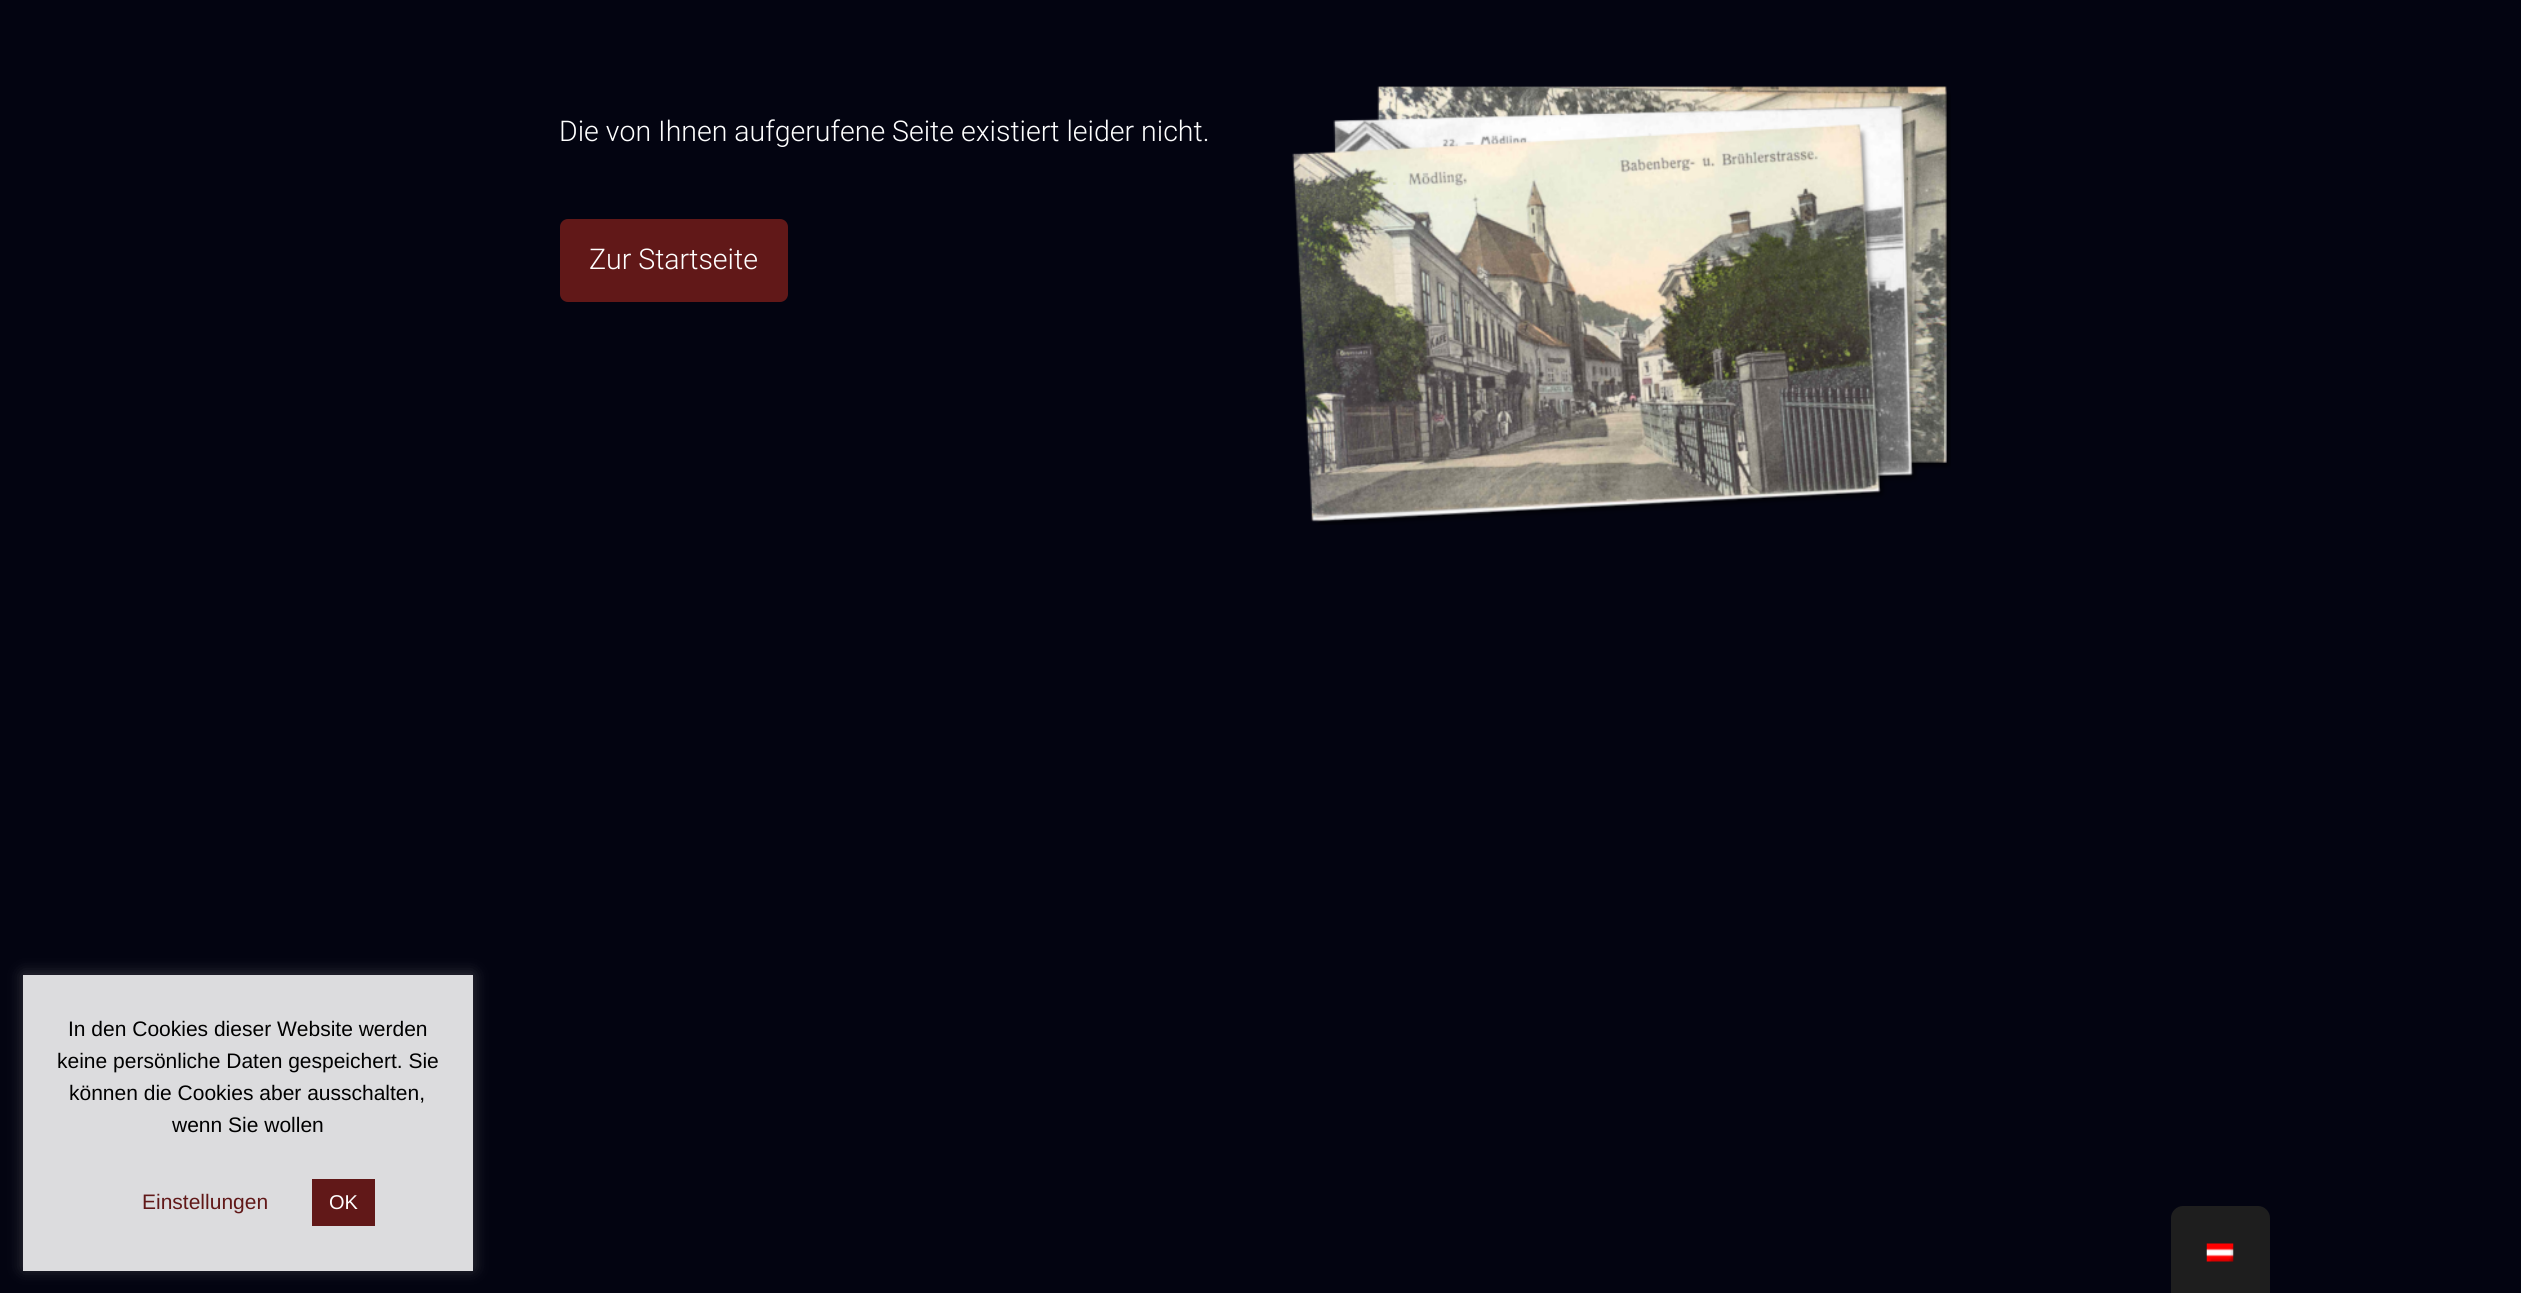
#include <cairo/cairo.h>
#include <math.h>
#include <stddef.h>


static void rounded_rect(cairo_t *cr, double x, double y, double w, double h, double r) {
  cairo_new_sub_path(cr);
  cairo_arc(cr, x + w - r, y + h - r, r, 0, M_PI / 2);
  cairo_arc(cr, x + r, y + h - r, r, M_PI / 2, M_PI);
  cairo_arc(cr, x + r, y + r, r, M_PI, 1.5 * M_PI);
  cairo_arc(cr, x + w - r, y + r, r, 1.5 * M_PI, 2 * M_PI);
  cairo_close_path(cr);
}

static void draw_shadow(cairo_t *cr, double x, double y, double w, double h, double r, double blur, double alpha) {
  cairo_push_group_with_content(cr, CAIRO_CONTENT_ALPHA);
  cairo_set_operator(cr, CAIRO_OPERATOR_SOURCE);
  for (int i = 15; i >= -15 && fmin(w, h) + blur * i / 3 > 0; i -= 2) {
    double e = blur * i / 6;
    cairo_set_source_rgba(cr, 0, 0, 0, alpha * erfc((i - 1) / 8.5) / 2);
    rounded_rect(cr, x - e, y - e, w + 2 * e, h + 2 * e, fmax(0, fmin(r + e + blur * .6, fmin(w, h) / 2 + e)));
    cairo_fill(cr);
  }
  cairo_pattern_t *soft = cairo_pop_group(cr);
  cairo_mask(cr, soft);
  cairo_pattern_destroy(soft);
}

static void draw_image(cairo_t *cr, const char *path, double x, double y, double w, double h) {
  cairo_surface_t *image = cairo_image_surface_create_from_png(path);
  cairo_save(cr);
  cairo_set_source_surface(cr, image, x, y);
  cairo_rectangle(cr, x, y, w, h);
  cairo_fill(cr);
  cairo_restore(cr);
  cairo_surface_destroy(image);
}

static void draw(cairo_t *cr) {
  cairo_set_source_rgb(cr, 3 / 255.0, 4 / 255.0, 17 / 255.0);
  cairo_paint(cr);
  cairo_set_source_rgb(cr, 97 / 255.0, 24 / 255.0, 24 / 255.0);
  rounded_rect(cr, 560, 219, 228, 83, 8);
  cairo_fill(cr);
  draw_image(cr, "images/1.png", 1292, 86, 659, 439);
  cairo_set_source_rgb(cr, 172 / 255.0, 171 / 255.0, 171 / 255.0);
  draw_shadow(cr, 23, 974, 450, 295, 0, 7.5, 0.3);
  cairo_set_source_rgb(cr, 220 / 255.0, 220 / 255.0, 222 / 255.0);
  cairo_rectangle(cr, 23, 975, 450, 296);
  cairo_fill(cr);
  cairo_set_source_rgb(cr, 97 / 255.0, 24 / 255.0, 24 / 255.0);
  cairo_rectangle(cr, 312, 1179, 63, 47);
  cairo_fill(cr);
  cairo_set_source_rgb(cr, 30 / 255.0, 30 / 255.0, 30 / 255.0);
  cairo_new_path(cr);
  cairo_move_to(cr, 2183, 1206);
  cairo_line_to(cr, 2258, 1206);
  cairo_curve_to(cr, 2264.5, 1206, 2270, 1211.5, 2270, 1218);
  cairo_line_to(cr, 2270, 1293);
  cairo_line_to(cr, 2171, 1293);
  cairo_line_to(cr, 2171, 1218);
  cairo_curve_to(cr, 2171, 1211.5, 2176.5, 1206, 2183, 1206);
  cairo_close_path(cr);
  cairo_fill(cr);
  draw_image(cr, "images/2.png", 2206, 1243, 28, 19);
  cairo_select_font_face(cr, "Roboto Light", CAIRO_FONT_SLANT_NORMAL, CAIRO_FONT_WEIGHT_NORMAL);
  cairo_set_font_size(cr, 28.5);
  cairo_set_source_rgb(cr, 1, 1, 1);
  cairo_move_to(cr, 559, 141);
  cairo_show_text(cr, "Die von Ihnen aufgerufene Seite existiert leider nicht.");
  cairo_move_to(cr, 589, 269);
  cairo_show_text(cr, "Zur Startseite");
  cairo_select_font_face(cr, "Liberation Sans", CAIRO_FONT_SLANT_NORMAL, CAIRO_FONT_WEIGHT_NORMAL);
  cairo_set_font_size(cr, 21);
  cairo_set_source_rgb(cr, 0, 0, 0);
  cairo_move_to(cr, 68, 1036);
  cairo_show_text(cr, "In den Cookies dieser Website werden");
  cairo_move_to(cr, 57, 1068);
  cairo_show_text(cr, "keine persönliche Daten gespeichert. Sie");
  cairo_move_to(cr, 69, 1100);
  cairo_show_text(cr, "können die Cookies aber ausschalten,");
  cairo_move_to(cr, 172, 1132);
  cairo_show_text(cr, "wenn Sie wollen");
  cairo_set_source_rgb(cr, 97 / 255.0, 24 / 255.0, 24 / 255.0);
  cairo_move_to(cr, 142, 1209);
  cairo_show_text(cr, "Einstellungen");
  cairo_set_font_size(cr, 20);
  cairo_set_source_rgb(cr, 1, 1, 1);
  cairo_move_to(cr, 329, 1209);
  cairo_show_text(cr, "OK");
}

int main(void) {
  cairo_surface_t *surface = cairo_image_surface_create(CAIRO_FORMAT_RGB24, 2521, 1293);
  cairo_t *cr = cairo_create(surface);
  cairo_font_options_t *options = cairo_font_options_create();
  cairo_font_options_set_hint_metrics(options, CAIRO_HINT_METRICS_OFF);
  cairo_font_options_set_hint_style(options, CAIRO_HINT_STYLE_NONE);
  cairo_set_font_options(cr, options);
  cairo_set_miter_limit(cr, 4);
  draw(cr);
  cairo_surface_write_to_png(surface, "out.png");
  cairo_font_options_destroy(options);
  cairo_destroy(cr);
  cairo_surface_destroy(surface);
  return 0;
}
